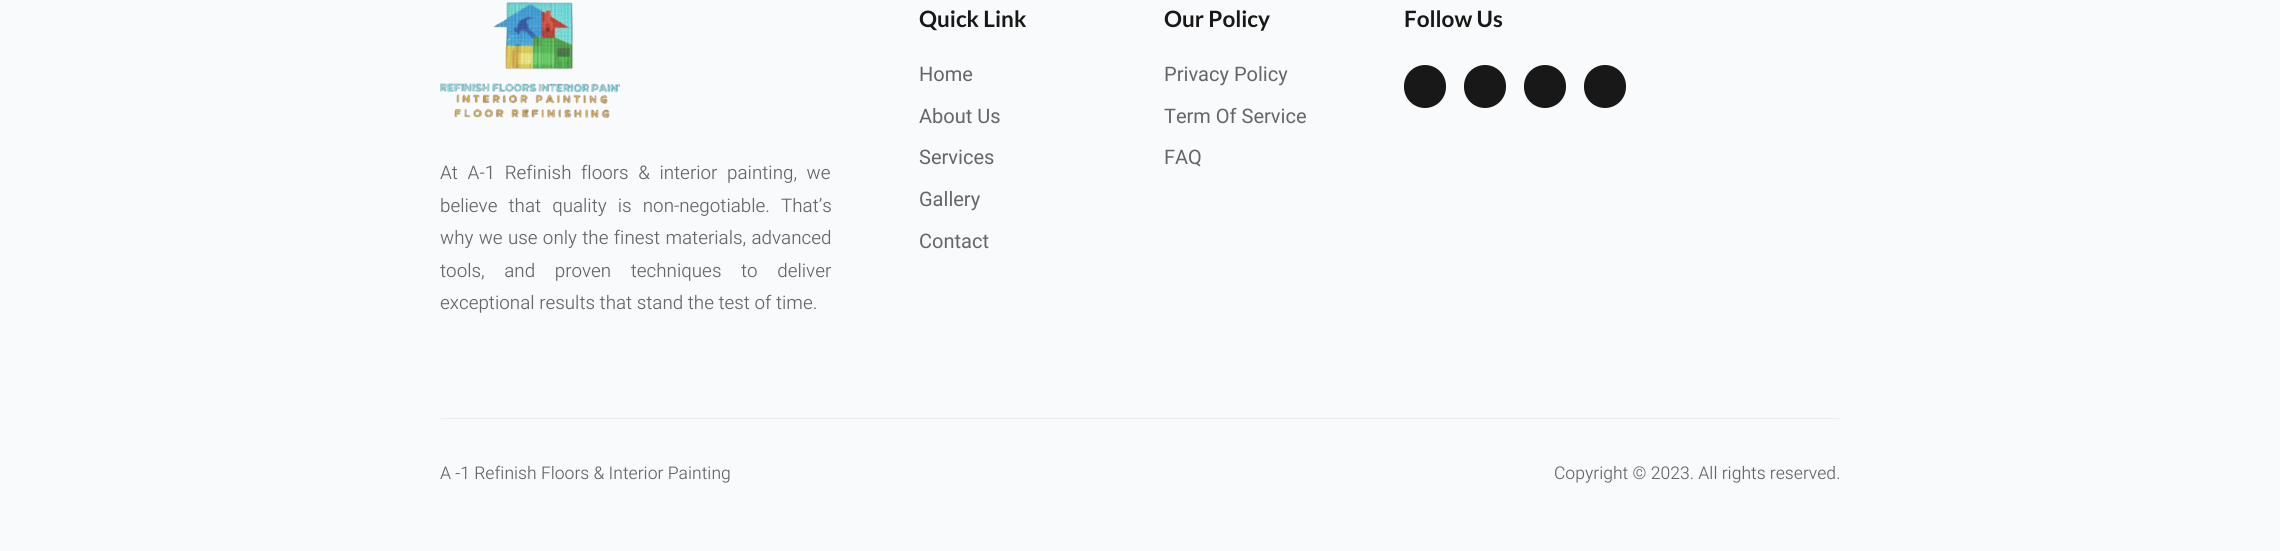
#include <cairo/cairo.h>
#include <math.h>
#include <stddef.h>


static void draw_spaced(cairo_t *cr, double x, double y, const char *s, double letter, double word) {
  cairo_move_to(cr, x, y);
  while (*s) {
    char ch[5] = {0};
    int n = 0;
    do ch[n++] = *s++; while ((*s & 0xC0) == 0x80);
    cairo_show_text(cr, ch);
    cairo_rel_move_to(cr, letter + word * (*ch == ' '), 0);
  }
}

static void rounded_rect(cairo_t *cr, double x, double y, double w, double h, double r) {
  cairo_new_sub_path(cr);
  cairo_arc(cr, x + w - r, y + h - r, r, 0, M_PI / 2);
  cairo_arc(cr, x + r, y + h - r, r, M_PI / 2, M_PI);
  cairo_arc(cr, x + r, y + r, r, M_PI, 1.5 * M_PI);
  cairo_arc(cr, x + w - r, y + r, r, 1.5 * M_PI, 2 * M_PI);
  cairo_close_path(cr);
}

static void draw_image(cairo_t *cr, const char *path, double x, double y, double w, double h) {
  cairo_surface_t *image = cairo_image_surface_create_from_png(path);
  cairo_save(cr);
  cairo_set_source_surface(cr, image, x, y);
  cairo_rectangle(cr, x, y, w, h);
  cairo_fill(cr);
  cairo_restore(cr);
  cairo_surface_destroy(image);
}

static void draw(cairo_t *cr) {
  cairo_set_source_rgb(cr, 249 / 255.0, 250 / 255.0, 251 / 255.0);
  cairo_paint(cr);
  cairo_set_source_rgb(cr, 24 / 255.0, 24 / 255.0, 24 / 255.0);
  rounded_rect(cr, 1404, 65, 42, 43, 21);
  cairo_fill(cr);
  rounded_rect(cr, 1464, 65, 42, 43, 21);
  cairo_fill(cr);
  rounded_rect(cr, 1524, 65, 42, 43, 21);
  cairo_fill(cr);
  rounded_rect(cr, 1584, 65, 42, 43, 21);
  cairo_fill(cr);
  draw_image(cr, "images/1.png", 440, 2, 180, 116);
  cairo_set_source_rgb(cr, 234 / 255.0, 236 / 255.0, 240 / 255.0);
  cairo_rectangle(cr, 441, 418, 1398, 1);
  cairo_fill(cr);
  cairo_select_font_face(cr, "Lato", CAIRO_FONT_SLANT_NORMAL, CAIRO_FONT_WEIGHT_BOLD);
  cairo_set_font_size(cr, 22.5);
  cairo_set_source_rgb(cr, 24 / 255.0, 24 / 255.0, 24 / 255.0);
  cairo_move_to(cr, 919, 27);
  cairo_show_text(cr, "Quick Link");
  cairo_select_font_face(cr, "Heebo", CAIRO_FONT_SLANT_NORMAL, CAIRO_FONT_WEIGHT_NORMAL);
  cairo_set_font_size(cr, 20);
  cairo_set_source_rgb(cr, 102 / 255.0, 102 / 255.0, 102 / 255.0);
  cairo_move_to(cr, 919, 81);
  cairo_show_text(cr, "Home");
  cairo_move_to(cr, 919, 123);
  cairo_show_text(cr, "About Us");
  cairo_move_to(cr, 919, 164);
  cairo_show_text(cr, "Services");
  cairo_move_to(cr, 919, 206);
  cairo_show_text(cr, "Gallery");
  cairo_move_to(cr, 919, 248);
  cairo_show_text(cr, "Contact");
  cairo_select_font_face(cr, "Lato", CAIRO_FONT_SLANT_NORMAL, CAIRO_FONT_WEIGHT_BOLD);
  cairo_set_font_size(cr, 22.5);
  cairo_set_source_rgb(cr, 24 / 255.0, 24 / 255.0, 24 / 255.0);
  cairo_move_to(cr, 1164, 27);
  cairo_show_text(cr, "Our Policy");
  cairo_select_font_face(cr, "Heebo", CAIRO_FONT_SLANT_NORMAL, CAIRO_FONT_WEIGHT_NORMAL);
  cairo_set_font_size(cr, 20);
  cairo_set_source_rgb(cr, 102 / 255.0, 102 / 255.0, 102 / 255.0);
  cairo_move_to(cr, 1164, 81);
  cairo_show_text(cr, "Privacy Policy");
  cairo_move_to(cr, 1164, 123);
  cairo_show_text(cr, "Term Of Service");
  cairo_move_to(cr, 1164, 164);
  cairo_show_text(cr, "FAQ");
  cairo_select_font_face(cr, "Lato", CAIRO_FONT_SLANT_NORMAL, CAIRO_FONT_WEIGHT_BOLD);
  cairo_set_font_size(cr, 22.5);
  cairo_set_source_rgb(cr, 24 / 255.0, 24 / 255.0, 24 / 255.0);
  cairo_move_to(cr, 1404, 27);
  cairo_show_text(cr, "Follow Us");
  cairo_select_font_face(cr, "Heebo Light", CAIRO_FONT_SLANT_NORMAL, CAIRO_FONT_WEIGHT_NORMAL);
  cairo_set_font_size(cr, 18.75);
  cairo_set_source_rgb(cr, 102 / 255.0, 102 / 255.0, 102 / 255.0);
  draw_spaced(cr, 440, 179, "At A-1 Refinish floors & interior painting, we", 0, 5);
  draw_spaced(cr, 440, 212, "believe that quality is non-negotiable. That’s", 0, 6.5);
  draw_spaced(cr, 440, 244, "why we use only the finest materials, advanced", 0, 0.75);
  draw_spaced(cr, 440, 277, "tools, and proven techniques to deliver", 0, 15);
  cairo_move_to(cr, 440, 309);
  cairo_show_text(cr, "exceptional results that stand the test of time.");
  cairo_set_font_size(cr, 17.5);
  cairo_move_to(cr, 440, 479);
  cairo_show_text(cr, "A -1 Refinish Floors & Interior Painting");
  cairo_move_to(cr, 1554, 479);
  cairo_show_text(cr, "Copyright © 2023. All rights reserved.");
}

int main(void) {
  cairo_surface_t *surface = cairo_image_surface_create(CAIRO_FORMAT_RGB24, 2280, 551);
  cairo_t *cr = cairo_create(surface);
  cairo_font_options_t *options = cairo_font_options_create();
  cairo_font_options_set_hint_metrics(options, CAIRO_HINT_METRICS_OFF);
  cairo_font_options_set_hint_style(options, CAIRO_HINT_STYLE_NONE);
  cairo_set_font_options(cr, options);
  cairo_set_miter_limit(cr, 4);
  draw(cr);
  cairo_surface_write_to_png(surface, "out.png");
  cairo_font_options_destroy(options);
  cairo_destroy(cr);
  cairo_surface_destroy(surface);
  return 0;
}
